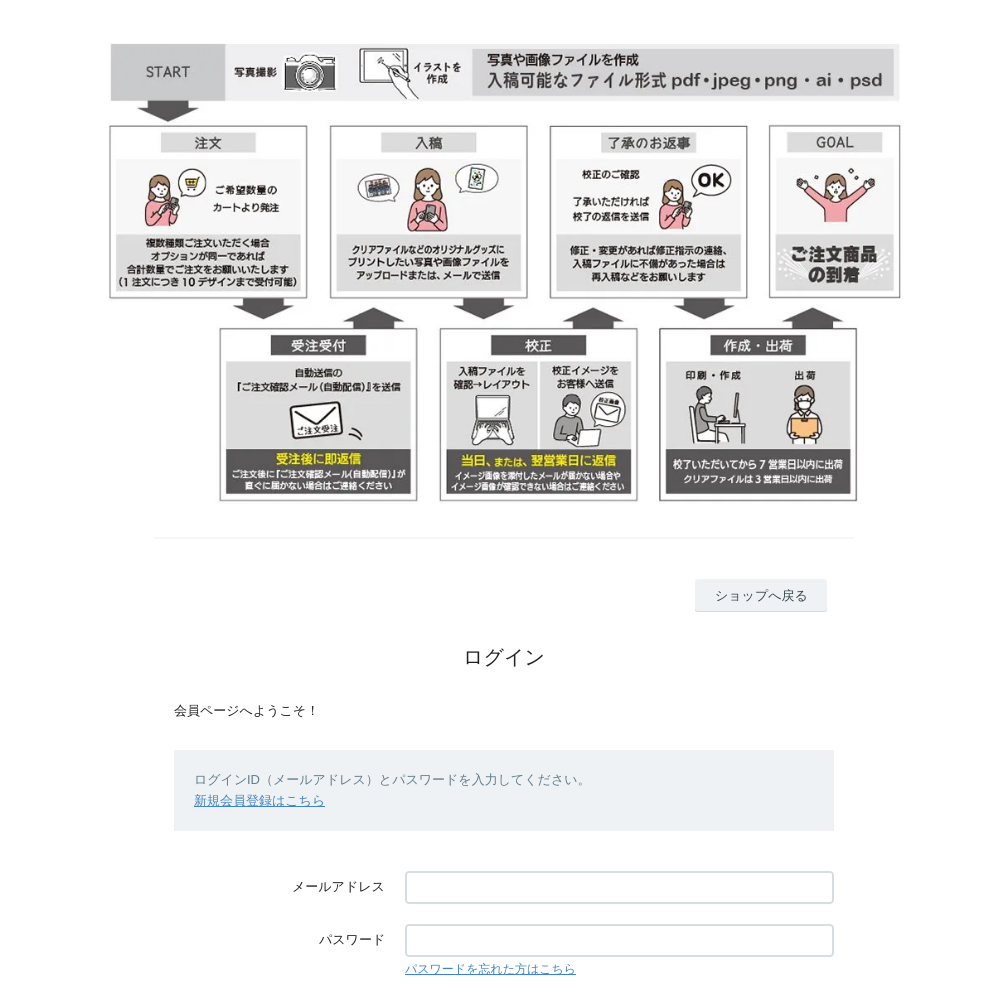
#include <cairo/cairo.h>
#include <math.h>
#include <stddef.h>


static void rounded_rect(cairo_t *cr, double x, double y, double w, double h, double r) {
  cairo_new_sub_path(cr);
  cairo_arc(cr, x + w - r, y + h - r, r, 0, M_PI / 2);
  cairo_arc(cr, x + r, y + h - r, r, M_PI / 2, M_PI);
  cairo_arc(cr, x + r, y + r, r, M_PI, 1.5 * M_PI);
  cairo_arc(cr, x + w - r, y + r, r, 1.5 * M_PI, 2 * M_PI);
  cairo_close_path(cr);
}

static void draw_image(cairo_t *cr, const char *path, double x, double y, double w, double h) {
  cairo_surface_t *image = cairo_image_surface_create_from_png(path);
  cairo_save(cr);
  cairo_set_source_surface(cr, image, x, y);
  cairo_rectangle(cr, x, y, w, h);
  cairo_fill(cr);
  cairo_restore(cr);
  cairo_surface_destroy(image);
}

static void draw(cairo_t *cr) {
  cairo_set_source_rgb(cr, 1, 1, 1);
  cairo_paint(cr);
  draw_image(cr, "images/1.png", 108, 43, 796, 461);
  cairo_set_source_rgb(cr, 246 / 255.0, 246 / 255.0, 246 / 255.0);
  cairo_rectangle(cr, 154, 537, 700, 2);
  cairo_fill(cr);
  cairo_set_source_rgb(cr, 239 / 255.0, 242 / 255.0, 244 / 255.0);
  rounded_rect(cr, 695, 579, 132, 33, 3);
  cairo_fill(cr);
  cairo_set_source_rgba(cr, 0, 0, 0, 0.1);
  cairo_new_path(cr);
  cairo_move_to(cr, 695, 608);
  cairo_curve_to(cr, 695, 610, 695, 612, 697, 612);
  cairo_line_to(cr, 825, 612);
  cairo_curve_to(cr, 827, 612, 827, 610, 827, 608);
  cairo_curve_to(cr, 827, 609, 826, 611, 824, 611);
  cairo_line_to(cr, 698, 611);
  cairo_curve_to(cr, 696, 611, 695, 609, 695, 608);
  cairo_close_path(cr);
  cairo_fill(cr);
  cairo_set_source_rgb(cr, 239 / 255.0, 242 / 255.0, 244 / 255.0);
  cairo_rectangle(cr, 174, 750, 660, 81);
  cairo_fill(cr);
  cairo_set_source_rgb(cr, 65 / 255.0, 131 / 255.0, 196 / 255.0);
  cairo_rectangle(cr, 194, 806, 131, 1);
  cairo_fill(cr);
  rounded_rect(cr, 406, 872, 427, 31, 3);
  cairo_set_source_rgb(cr, 215 / 255.0, 222 / 255.0, 226 / 255.0);
  cairo_stroke(cr);
  rounded_rect(cr, 406, 925, 427, 31, 3);
  cairo_stroke(cr);
  cairo_set_source_rgb(cr, 65 / 255.0, 131 / 255.0, 196 / 255.0);
  cairo_rectangle(cr, 405, 974, 171, 1);
  cairo_fill(cr);
  cairo_select_font_face(cr, "WenQuanYi Zen Hei Medium", CAIRO_FONT_SLANT_NORMAL, CAIRO_FONT_WEIGHT_NORMAL);
  cairo_set_font_size(cr, 13);
  cairo_set_source_rgb(cr, 53 / 255.0, 69 / 255.0, 76 / 255.0);
  cairo_move_to(cr, 715, 600);
  cairo_show_text(cr, "ショップへ戻る");
  cairo_set_font_size(cr, 20);
  cairo_set_source_rgb(cr, 34 / 255.0, 34 / 255.0, 34 / 255.0);
  cairo_move_to(cr, 463, 664);
  cairo_show_text(cr, "ログイン");
  cairo_set_font_size(cr, 13);
  cairo_move_to(cr, 174, 715);
  cairo_show_text(cr, "会員ページへようこそ！");
  cairo_set_source_rgb(cr, 96 / 255.0, 125 / 255.0, 139 / 255.0);
  cairo_move_to(cr, 194, 784);
  cairo_show_text(cr, "ログイン");
  cairo_select_font_face(cr, "Liberation Sans", CAIRO_FONT_SLANT_NORMAL, CAIRO_FONT_WEIGHT_NORMAL);
  cairo_move_to(cr, 247, 784);
  cairo_show_text(cr, "ID");
  cairo_select_font_face(cr, "WenQuanYi Zen Hei Medium", CAIRO_FONT_SLANT_NORMAL, CAIRO_FONT_WEIGHT_NORMAL);
  cairo_move_to(cr, 260, 784);
  cairo_show_text(cr, "（メールアドレス）とパスワードを入力してください。");
  cairo_set_source_rgb(cr, 65 / 255.0, 131 / 255.0, 196 / 255.0);
  cairo_move_to(cr, 194, 805);
  cairo_show_text(cr, "新規会員登録はこちら");
  cairo_set_source_rgb(cr, 34 / 255.0, 34 / 255.0, 34 / 255.0);
  cairo_move_to(cr, 292, 891);
  cairo_show_text(cr, "メールアドレス");
  cairo_move_to(cr, 319, 944);
  cairo_show_text(cr, "パスワード");
  cairo_set_font_size(cr, 12);
  cairo_set_source_rgb(cr, 65 / 255.0, 131 / 255.0, 196 / 255.0);
  cairo_move_to(cr, 405, 973);
  cairo_show_text(cr, "パスワードを忘れた方はこちら");
}

int main(void) {
  cairo_surface_t *surface = cairo_image_surface_create(CAIRO_FORMAT_RGB24, 1008, 996);
  cairo_t *cr = cairo_create(surface);
  cairo_font_options_t *options = cairo_font_options_create();
  cairo_font_options_set_hint_metrics(options, CAIRO_HINT_METRICS_OFF);
  cairo_font_options_set_hint_style(options, CAIRO_HINT_STYLE_NONE);
  cairo_set_font_options(cr, options);
  cairo_set_miter_limit(cr, 4);
  draw(cr);
  cairo_surface_write_to_png(surface, "out.png");
  cairo_font_options_destroy(options);
  cairo_destroy(cr);
  cairo_surface_destroy(surface);
  return 0;
}
